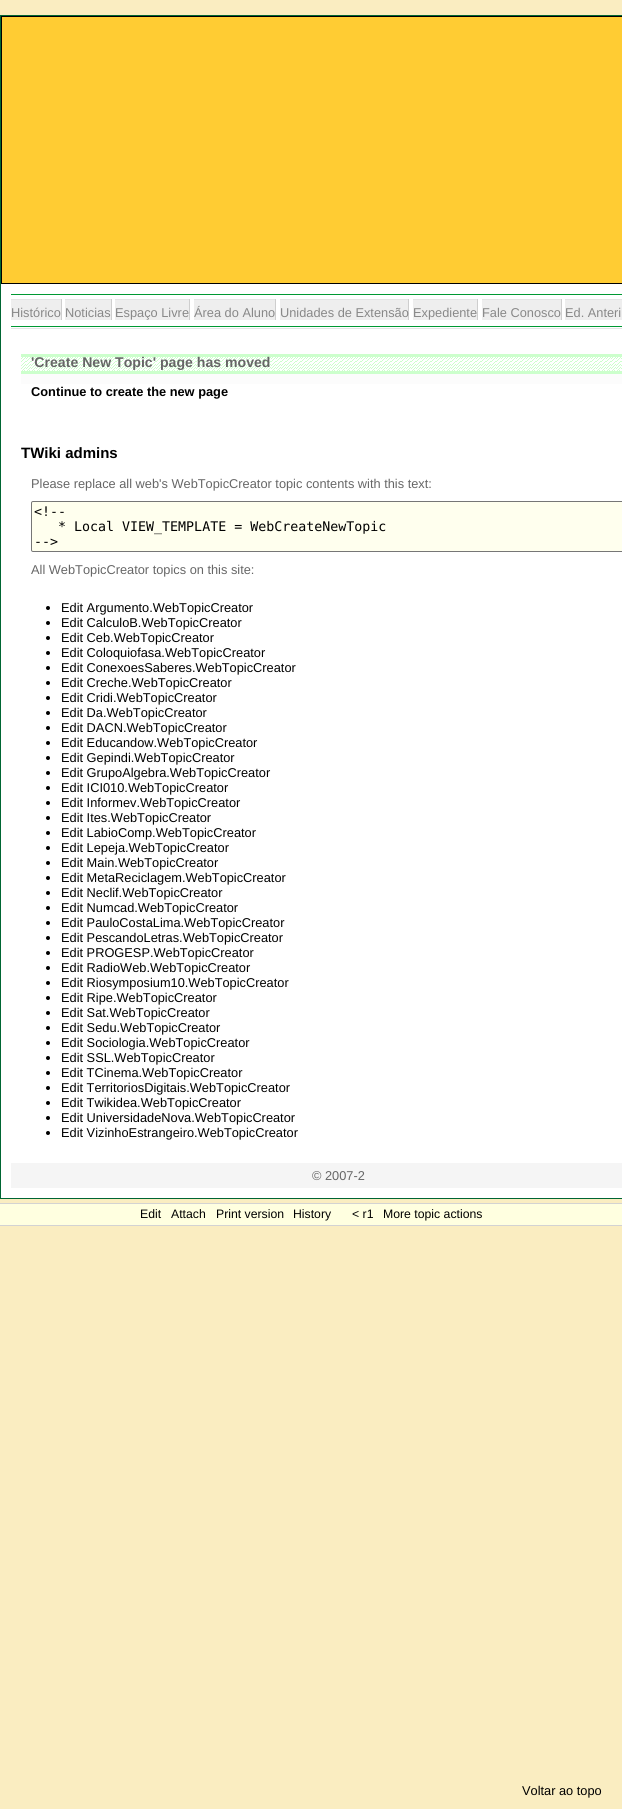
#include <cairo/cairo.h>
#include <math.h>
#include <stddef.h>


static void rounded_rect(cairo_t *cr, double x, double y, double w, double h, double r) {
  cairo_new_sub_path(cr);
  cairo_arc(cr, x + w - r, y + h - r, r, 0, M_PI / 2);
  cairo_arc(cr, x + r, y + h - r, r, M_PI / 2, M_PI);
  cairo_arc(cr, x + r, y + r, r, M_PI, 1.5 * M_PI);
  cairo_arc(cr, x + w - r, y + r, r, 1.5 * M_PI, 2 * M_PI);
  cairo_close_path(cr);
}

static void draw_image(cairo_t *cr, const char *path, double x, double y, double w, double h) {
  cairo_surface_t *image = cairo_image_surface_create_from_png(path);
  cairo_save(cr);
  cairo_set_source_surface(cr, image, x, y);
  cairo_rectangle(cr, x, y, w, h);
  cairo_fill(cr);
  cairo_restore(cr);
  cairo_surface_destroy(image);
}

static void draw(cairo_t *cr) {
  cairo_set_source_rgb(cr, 250 / 255.0, 237 / 255.0, 193 / 255.0);
  cairo_paint(cr);
  cairo_set_source_rgb(cr, 1, 1, 1);
  cairo_rectangle(cr, 1, 284, 621, 914);
  cairo_fill(cr);
  cairo_rectangle(cr, 0.5, 15.5, 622, 1183);
  cairo_set_source_rgb(cr, 0, 102 / 255.0, 51 / 255.0);
  cairo_set_line_width(cr, 1);
  cairo_stroke(cr);
  cairo_set_source_rgb(cr, 1, 204 / 255.0, 51 / 255.0);
  cairo_rectangle(cr, 1.5, 16.5, 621, 267);
  cairo_fill_preserve(cr);
  cairo_set_source_rgb(cr, 0, 0, 0);
  cairo_stroke(cr);
  cairo_set_source_rgb(cr, 0, 153 / 255.0, 51 / 255.0);
  cairo_rectangle(cr, 11, 294, 611, 1);
  cairo_fill(cr);
  cairo_rectangle(cr, 11, 326, 611, 1);
  cairo_fill(cr);
  cairo_set_source_rgb(cr, 238 / 255.0, 238 / 255.0, 238 / 255.0);
  cairo_rectangle(cr, 11, 300, 50, 20);
  cairo_fill(cr);
  cairo_set_source_rgb(cr, 229 / 255.0, 229 / 255.0, 229 / 255.0);
  cairo_rectangle(cr, 11, 299, 51, 1);
  cairo_fill(cr);
  cairo_set_source_rgb(cr, 206 / 255.0, 206 / 255.0, 206 / 255.0);
  cairo_rectangle(cr, 61, 299, 1, 21);
  cairo_fill(cr);
  cairo_set_source_rgb(cr, 238 / 255.0, 238 / 255.0, 238 / 255.0);
  cairo_rectangle(cr, 65, 300, 46, 20);
  cairo_fill(cr);
  cairo_set_source_rgb(cr, 229 / 255.0, 229 / 255.0, 229 / 255.0);
  cairo_rectangle(cr, 65, 299, 47, 1);
  cairo_fill(cr);
  cairo_set_source_rgb(cr, 206 / 255.0, 206 / 255.0, 206 / 255.0);
  cairo_rectangle(cr, 111, 299, 1, 21);
  cairo_fill(cr);
  cairo_set_source_rgb(cr, 238 / 255.0, 238 / 255.0, 238 / 255.0);
  cairo_rectangle(cr, 115, 300, 74, 20);
  cairo_fill(cr);
  cairo_set_source_rgb(cr, 229 / 255.0, 229 / 255.0, 229 / 255.0);
  cairo_rectangle(cr, 115, 299, 75, 1);
  cairo_fill(cr);
  cairo_set_source_rgb(cr, 206 / 255.0, 206 / 255.0, 206 / 255.0);
  cairo_rectangle(cr, 189, 299, 1, 21);
  cairo_fill(cr);
  cairo_set_source_rgb(cr, 238 / 255.0, 238 / 255.0, 238 / 255.0);
  cairo_rectangle(cr, 194, 300, 81, 20);
  cairo_fill(cr);
  cairo_set_source_rgb(cr, 229 / 255.0, 229 / 255.0, 229 / 255.0);
  cairo_rectangle(cr, 194, 299, 82, 1);
  cairo_fill(cr);
  cairo_set_source_rgb(cr, 206 / 255.0, 206 / 255.0, 206 / 255.0);
  cairo_rectangle(cr, 275, 299, 1, 21);
  cairo_fill(cr);
  cairo_set_source_rgb(cr, 238 / 255.0, 238 / 255.0, 238 / 255.0);
  cairo_rectangle(cr, 280, 300, 128, 20);
  cairo_fill(cr);
  cairo_set_source_rgb(cr, 229 / 255.0, 229 / 255.0, 229 / 255.0);
  cairo_rectangle(cr, 280, 299, 129, 1);
  cairo_fill(cr);
  cairo_set_source_rgb(cr, 206 / 255.0, 206 / 255.0, 206 / 255.0);
  cairo_rectangle(cr, 408, 299, 1, 21);
  cairo_fill(cr);
  cairo_set_source_rgb(cr, 238 / 255.0, 238 / 255.0, 238 / 255.0);
  cairo_rectangle(cr, 413, 300, 64, 20);
  cairo_fill(cr);
  cairo_set_source_rgb(cr, 229 / 255.0, 229 / 255.0, 229 / 255.0);
  cairo_rectangle(cr, 413, 299, 65, 1);
  cairo_fill(cr);
  cairo_set_source_rgb(cr, 206 / 255.0, 206 / 255.0, 206 / 255.0);
  cairo_rectangle(cr, 477, 299, 1, 21);
  cairo_fill(cr);
  cairo_set_source_rgb(cr, 238 / 255.0, 238 / 255.0, 238 / 255.0);
  cairo_rectangle(cr, 482, 300, 79, 20);
  cairo_fill(cr);
  cairo_set_source_rgb(cr, 229 / 255.0, 229 / 255.0, 229 / 255.0);
  cairo_rectangle(cr, 482, 299, 80, 1);
  cairo_fill(cr);
  cairo_set_source_rgb(cr, 206 / 255.0, 206 / 255.0, 206 / 255.0);
  cairo_rectangle(cr, 561, 299, 1, 21);
  cairo_fill(cr);
  cairo_set_source_rgb(cr, 238 / 255.0, 238 / 255.0, 238 / 255.0);
  cairo_rectangle(cr, 565, 300, 57, 20);
  cairo_fill(cr);
  cairo_set_source_rgb(cr, 229 / 255.0, 229 / 255.0, 229 / 255.0);
  cairo_rectangle(cr, 565, 299, 57, 1);
  cairo_fill(cr);
  cairo_rectangle(cr, 11, 328, 611, 1);
  cairo_fill(cr);
  cairo_set_source_rgb(cr, 252 / 255.0, 252 / 255.0, 252 / 255.0);
  cairo_rectangle(cr, 21, 374, 601, 10);
  cairo_fill(cr);
  draw_image(cr, "images/1.png", 21, 354, 601, 20);
  cairo_set_source_rgb(cr, 1, 1, 238 / 255.0);
  rounded_rect(cr, 31.5, 501.5, 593, 50, 1.5);
  cairo_fill_preserve(cr);
  cairo_set_source_rgb(cr, 118 / 255.0, 118 / 255.0, 118 / 255.0);
  cairo_stroke(cr);
  cairo_set_source_rgb(cr, 0, 0, 0);
  cairo_arc(cr, 48, 608, 2, 0, 2 * M_PI);
  cairo_fill(cr);
  cairo_arc(cr, 48, 623, 2, 0, 2 * M_PI);
  cairo_fill(cr);
  cairo_arc(cr, 48, 638, 2, 0, 2 * M_PI);
  cairo_fill(cr);
  cairo_arc(cr, 48, 653, 2, 0, 2 * M_PI);
  cairo_fill(cr);
  cairo_arc(cr, 48, 668, 2, 0, 2 * M_PI);
  cairo_fill(cr);
  cairo_arc(cr, 48, 683, 2, 0, 2 * M_PI);
  cairo_fill(cr);
  cairo_arc(cr, 48, 698, 2, 0, 2 * M_PI);
  cairo_fill(cr);
  cairo_arc(cr, 48, 713, 2, 0, 2 * M_PI);
  cairo_fill(cr);
  cairo_arc(cr, 48, 728, 2, 0, 2 * M_PI);
  cairo_fill(cr);
  cairo_arc(cr, 48, 743, 2, 0, 2 * M_PI);
  cairo_fill(cr);
  cairo_arc(cr, 48, 758, 2, 0, 2 * M_PI);
  cairo_fill(cr);
  cairo_arc(cr, 48, 773, 2, 0, 2 * M_PI);
  cairo_fill(cr);
  cairo_arc(cr, 48, 788, 2, 0, 2 * M_PI);
  cairo_fill(cr);
  cairo_arc(cr, 48, 803, 2, 0, 2 * M_PI);
  cairo_fill(cr);
  cairo_arc(cr, 48, 818, 2, 0, 2 * M_PI);
  cairo_fill(cr);
  cairo_arc(cr, 48, 833, 2, 0, 2 * M_PI);
  cairo_fill(cr);
  cairo_arc(cr, 48, 848, 2, 0, 2 * M_PI);
  cairo_fill(cr);
  cairo_arc(cr, 48, 863, 2, 0, 2 * M_PI);
  cairo_fill(cr);
  cairo_arc(cr, 48, 878, 2, 0, 2 * M_PI);
  cairo_fill(cr);
  cairo_arc(cr, 48, 893, 2, 0, 2 * M_PI);
  cairo_fill(cr);
  cairo_arc(cr, 48, 908, 2, 0, 2 * M_PI);
  cairo_fill(cr);
  cairo_arc(cr, 48, 923, 2, 0, 2 * M_PI);
  cairo_fill(cr);
  cairo_arc(cr, 48, 938, 2, 0, 2 * M_PI);
  cairo_fill(cr);
  cairo_arc(cr, 48, 953, 2, 0, 2 * M_PI);
  cairo_fill(cr);
  cairo_arc(cr, 48, 968, 2, 0, 2 * M_PI);
  cairo_fill(cr);
  cairo_arc(cr, 48, 983, 2, 0, 2 * M_PI);
  cairo_fill(cr);
  cairo_arc(cr, 48, 998, 2, 0, 2 * M_PI);
  cairo_fill(cr);
  cairo_arc(cr, 48, 1013, 2, 0, 2 * M_PI);
  cairo_fill(cr);
  cairo_arc(cr, 48, 1028, 2, 0, 2 * M_PI);
  cairo_fill(cr);
  cairo_arc(cr, 48, 1043, 2, 0, 2 * M_PI);
  cairo_fill(cr);
  cairo_arc(cr, 48, 1058, 2, 0, 2 * M_PI);
  cairo_fill(cr);
  cairo_arc(cr, 48, 1073, 2, 0, 2 * M_PI);
  cairo_fill(cr);
  cairo_arc(cr, 48, 1088, 2, 0, 2 * M_PI);
  cairo_fill(cr);
  cairo_arc(cr, 48, 1103, 2, 0, 2 * M_PI);
  cairo_fill(cr);
  cairo_arc(cr, 48, 1118, 2, 0, 2 * M_PI);
  cairo_fill(cr);
  cairo_arc(cr, 48, 1133, 2, 0, 2 * M_PI);
  cairo_fill(cr);
  cairo_set_source_rgb(cr, 245 / 255.0, 245 / 255.0, 245 / 255.0);
  cairo_rectangle(cr, 11, 1163, 611, 25);
  cairo_fill(cr);
  cairo_set_source_rgb(cr, 1, 1, 224 / 255.0);
  cairo_rectangle(cr, 0, 1204, 622, 21);
  cairo_fill(cr);
  cairo_set_source_rgb(cr, 211 / 255.0, 211 / 255.0, 211 / 255.0);
  cairo_rectangle(cr, 0, 1203, 622, 1);
  cairo_fill(cr);
  cairo_rectangle(cr, 0, 1225, 622, 1);
  cairo_fill(cr);
  cairo_select_font_face(cr, "Liberation Sans", CAIRO_FONT_SLANT_NORMAL, CAIRO_FONT_WEIGHT_NORMAL);
  cairo_set_font_size(cr, 12.8);
  cairo_set_source_rgb(cr, 136 / 255.0, 136 / 255.0, 136 / 255.0);
  cairo_move_to(cr, 11, 317);
  cairo_show_text(cr, "Histórico");
  cairo_move_to(cr, 65, 317);
  cairo_show_text(cr, "Noticias");
  cairo_move_to(cr, 115, 317);
  cairo_show_text(cr, "Espaço Livre");
  cairo_move_to(cr, 194, 317);
  cairo_show_text(cr, "Área do Aluno");
  cairo_move_to(cr, 280, 317);
  cairo_show_text(cr, "Unidades de Extensão");
  cairo_move_to(cr, 413, 317);
  cairo_show_text(cr, "Expediente");
  cairo_move_to(cr, 482, 317);
  cairo_show_text(cr, "Fale Conosco");
  cairo_move_to(cr, 565, 317);
  cairo_show_text(cr, "Ed. Anteri");
  cairo_select_font_face(cr, "Liberation Sans", CAIRO_FONT_SLANT_NORMAL, CAIRO_FONT_WEIGHT_BOLD);
  cairo_set_font_size(cr, 14.1);
  cairo_set_source_rgb(cr, 102 / 255.0, 102 / 255.0, 102 / 255.0);
  cairo_move_to(cr, 31, 367);
  cairo_show_text(cr, "'Create New Topic' page has moved");
  cairo_set_font_size(cr, 12.8);
  cairo_set_source_rgb(cr, 0, 0, 0);
  cairo_move_to(cr, 31, 396);
  cairo_show_text(cr, "Continue to create the new page");
  cairo_set_font_size(cr, 15);
  cairo_move_to(cr, 21, 458);
  cairo_show_text(cr, "TWiki admins");
  cairo_select_font_face(cr, "Liberation Sans", CAIRO_FONT_SLANT_NORMAL, CAIRO_FONT_WEIGHT_NORMAL);
  cairo_set_font_size(cr, 12.8);
  cairo_set_source_rgb(cr, 102 / 255.0, 102 / 255.0, 102 / 255.0);
  cairo_move_to(cr, 31, 488);
  cairo_show_text(cr, "Please replace all web's WebTopicCreator topic contents with this text:");
  cairo_select_font_face(cr, "DejaVu Sans Mono", CAIRO_FONT_SLANT_NORMAL, CAIRO_FONT_WEIGHT_NORMAL);
  cairo_set_font_size(cr, 13.3);
  cairo_set_source_rgb(cr, 0, 0, 0);
  cairo_move_to(cr, 34, 516);
  cairo_show_text(cr, "<!--");
  cairo_move_to(cr, 58, 531);
  cairo_show_text(cr, "* Local VIEW_TEMPLATE = WebCreateNewTopic");
  cairo_move_to(cr, 34, 546);
  cairo_show_text(cr, "-->");
  cairo_select_font_face(cr, "Liberation Sans", CAIRO_FONT_SLANT_NORMAL, CAIRO_FONT_WEIGHT_NORMAL);
  cairo_set_font_size(cr, 12.8);
  cairo_set_source_rgb(cr, 102 / 255.0, 102 / 255.0, 102 / 255.0);
  cairo_move_to(cr, 31, 574);
  cairo_show_text(cr, "All WebTopicCreator topics on this site:");
  cairo_set_source_rgb(cr, 0, 0, 0);
  cairo_move_to(cr, 61, 612);
  cairo_show_text(cr, "Edit Argumento.WebTopicCreator");
  cairo_move_to(cr, 61, 627);
  cairo_show_text(cr, "Edit CalculoB.WebTopicCreator");
  cairo_move_to(cr, 61, 642);
  cairo_show_text(cr, "Edit Ceb.WebTopicCreator");
  cairo_move_to(cr, 61, 657);
  cairo_show_text(cr, "Edit Coloquiofasa.WebTopicCreator");
  cairo_move_to(cr, 61, 672);
  cairo_show_text(cr, "Edit ConexoesSaberes.WebTopicCreator");
  cairo_move_to(cr, 61, 687);
  cairo_show_text(cr, "Edit Creche.WebTopicCreator");
  cairo_move_to(cr, 61, 702);
  cairo_show_text(cr, "Edit Cridi.WebTopicCreator");
  cairo_move_to(cr, 61, 717);
  cairo_show_text(cr, "Edit Da.WebTopicCreator");
  cairo_move_to(cr, 61, 732);
  cairo_show_text(cr, "Edit DACN.WebTopicCreator");
  cairo_move_to(cr, 61, 747);
  cairo_show_text(cr, "Edit Educandow.WebTopicCreator");
  cairo_move_to(cr, 61, 762);
  cairo_show_text(cr, "Edit Gepindi.WebTopicCreator");
  cairo_move_to(cr, 61, 777);
  cairo_show_text(cr, "Edit GrupoAlgebra.WebTopicCreator");
  cairo_move_to(cr, 61, 792);
  cairo_show_text(cr, "Edit ICI010.WebTopicCreator");
  cairo_move_to(cr, 61, 807);
  cairo_show_text(cr, "Edit Informev.WebTopicCreator");
  cairo_move_to(cr, 61, 822);
  cairo_show_text(cr, "Edit Ites.WebTopicCreator");
  cairo_move_to(cr, 61, 837);
  cairo_show_text(cr, "Edit LabioComp.WebTopicCreator");
  cairo_move_to(cr, 61, 852);
  cairo_show_text(cr, "Edit Lepeja.WebTopicCreator");
  cairo_move_to(cr, 61, 867);
  cairo_show_text(cr, "Edit Main.WebTopicCreator");
  cairo_move_to(cr, 61, 882);
  cairo_show_text(cr, "Edit MetaReciclagem.WebTopicCreator");
  cairo_move_to(cr, 61, 897);
  cairo_show_text(cr, "Edit Neclif.WebTopicCreator");
  cairo_move_to(cr, 61, 912);
  cairo_show_text(cr, "Edit Numcad.WebTopicCreator");
  cairo_move_to(cr, 61, 927);
  cairo_show_text(cr, "Edit PauloCostaLima.WebTopicCreator");
  cairo_move_to(cr, 61, 942);
  cairo_show_text(cr, "Edit PescandoLetras.WebTopicCreator");
  cairo_move_to(cr, 61, 957);
  cairo_show_text(cr, "Edit PROGESP.WebTopicCreator");
  cairo_move_to(cr, 61, 972);
  cairo_show_text(cr, "Edit RadioWeb.WebTopicCreator");
  cairo_move_to(cr, 61, 987);
  cairo_show_text(cr, "Edit Riosymposium10.WebTopicCreator");
  cairo_move_to(cr, 61, 1002);
  cairo_show_text(cr, "Edit Ripe.WebTopicCreator");
  cairo_move_to(cr, 61, 1017);
  cairo_show_text(cr, "Edit Sat.WebTopicCreator");
  cairo_move_to(cr, 61, 1032);
  cairo_show_text(cr, "Edit Sedu.WebTopicCreator");
  cairo_move_to(cr, 61, 1047);
  cairo_show_text(cr, "Edit Sociologia.WebTopicCreator");
  cairo_move_to(cr, 61, 1062);
  cairo_show_text(cr, "Edit SSL.WebTopicCreator");
  cairo_move_to(cr, 61, 1077);
  cairo_show_text(cr, "Edit TCinema.WebTopicCreator");
  cairo_move_to(cr, 61, 1092);
  cairo_show_text(cr, "Edit TerritoriosDigitais.WebTopicCreator");
  cairo_move_to(cr, 61, 1107);
  cairo_show_text(cr, "Edit Twikidea.WebTopicCreator");
  cairo_move_to(cr, 61, 1122);
  cairo_show_text(cr, "Edit UniversidadeNova.WebTopicCreator");
  cairo_move_to(cr, 61, 1137);
  cairo_show_text(cr, "Edit VizinhoEstrangeiro.WebTopicCreator");
  cairo_move_to(cr, 522, 1795);
  cairo_show_text(cr, "Voltar ao topo");
  cairo_set_source_rgb(cr, 102 / 255.0, 102 / 255.0, 102 / 255.0);
  cairo_move_to(cr, 312, 1180);
  cairo_show_text(cr, "© 2007-2");
  cairo_set_font_size(cr, 12.25);
  cairo_set_source_rgb(cr, 0, 0, 0);
  cairo_move_to(cr, 140, 1218);
  cairo_show_text(cr, "Edit");
  cairo_move_to(cr, 171, 1218);
  cairo_show_text(cr, "Attach");
  cairo_move_to(cr, 216, 1218);
  cairo_show_text(cr, "Print version");
  cairo_move_to(cr, 293, 1218);
  cairo_show_text(cr, "History");
  cairo_move_to(cr, 352, 1218);
  cairo_show_text(cr, "< r1");
  cairo_move_to(cr, 383, 1218);
  cairo_show_text(cr, "More topic actions");
}

int main(void) {
  cairo_surface_t *surface = cairo_image_surface_create(CAIRO_FORMAT_RGB24, 622, 1809);
  cairo_t *cr = cairo_create(surface);
  cairo_font_options_t *options = cairo_font_options_create();
  cairo_font_options_set_hint_metrics(options, CAIRO_HINT_METRICS_OFF);
  cairo_font_options_set_hint_style(options, CAIRO_HINT_STYLE_NONE);
  cairo_set_font_options(cr, options);
  cairo_set_miter_limit(cr, 4);
  draw(cr);
  cairo_surface_write_to_png(surface, "out.png");
  cairo_font_options_destroy(options);
  cairo_destroy(cr);
  cairo_surface_destroy(surface);
  return 0;
}
